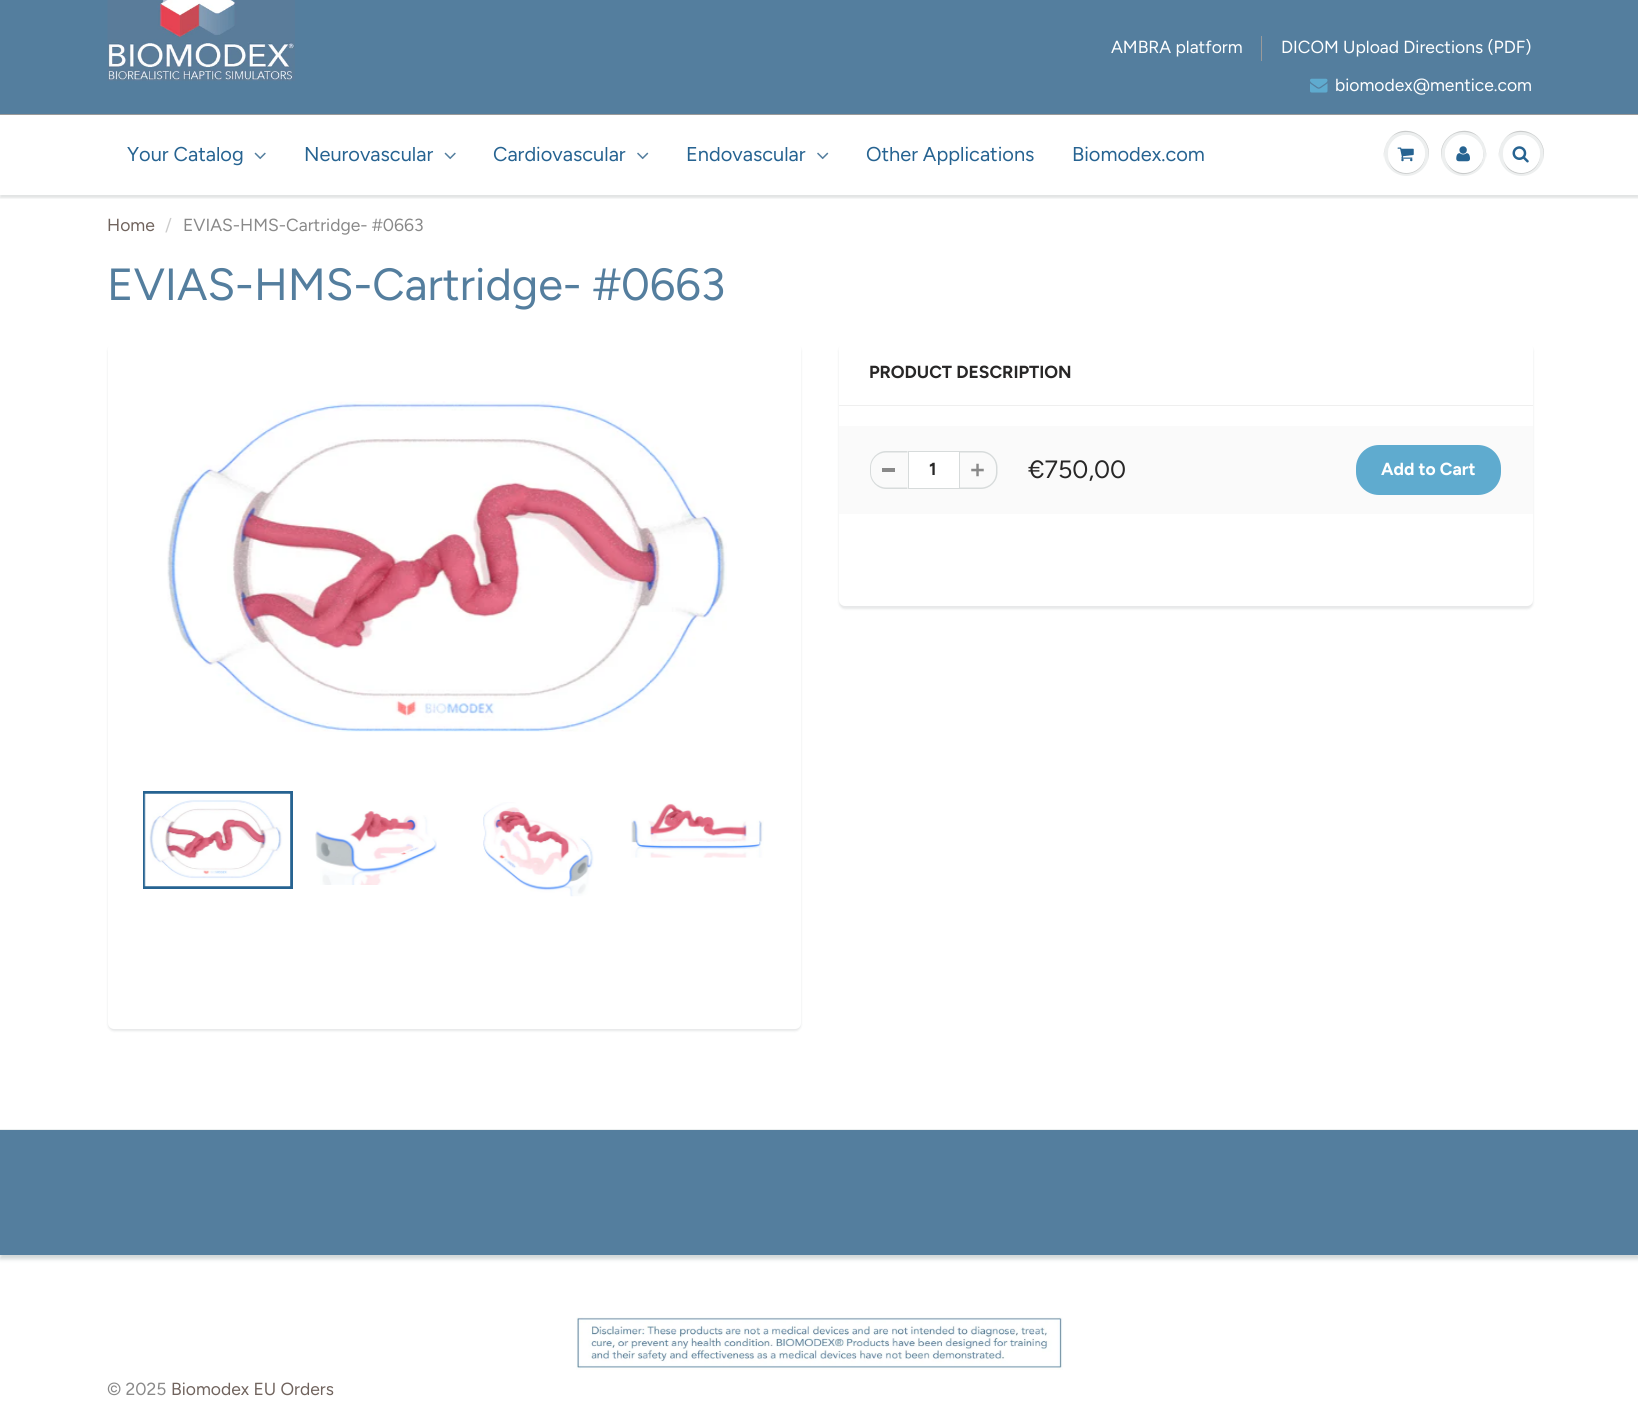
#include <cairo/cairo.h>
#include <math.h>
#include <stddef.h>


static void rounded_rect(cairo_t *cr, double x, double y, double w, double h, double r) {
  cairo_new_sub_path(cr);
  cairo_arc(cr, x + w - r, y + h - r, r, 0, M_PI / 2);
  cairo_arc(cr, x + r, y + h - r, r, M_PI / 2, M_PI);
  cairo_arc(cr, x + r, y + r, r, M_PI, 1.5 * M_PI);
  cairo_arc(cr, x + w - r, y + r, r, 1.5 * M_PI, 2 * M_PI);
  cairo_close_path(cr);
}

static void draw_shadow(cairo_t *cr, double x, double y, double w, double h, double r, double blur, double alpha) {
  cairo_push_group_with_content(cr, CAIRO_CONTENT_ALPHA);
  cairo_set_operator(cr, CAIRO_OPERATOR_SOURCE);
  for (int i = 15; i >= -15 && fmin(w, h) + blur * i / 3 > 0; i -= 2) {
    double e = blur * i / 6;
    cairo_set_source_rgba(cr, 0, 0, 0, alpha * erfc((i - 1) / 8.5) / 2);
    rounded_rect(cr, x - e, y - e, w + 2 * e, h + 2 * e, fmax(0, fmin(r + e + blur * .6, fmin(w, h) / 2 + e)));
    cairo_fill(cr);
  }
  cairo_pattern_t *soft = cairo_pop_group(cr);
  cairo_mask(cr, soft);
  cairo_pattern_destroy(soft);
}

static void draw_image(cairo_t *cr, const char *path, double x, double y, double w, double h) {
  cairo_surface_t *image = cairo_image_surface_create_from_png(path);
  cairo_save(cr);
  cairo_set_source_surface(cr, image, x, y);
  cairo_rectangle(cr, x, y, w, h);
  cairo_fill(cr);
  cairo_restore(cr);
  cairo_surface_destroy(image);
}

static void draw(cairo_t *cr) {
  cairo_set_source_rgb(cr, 1, 1, 1);
  cairo_paint(cr);
  cairo_set_source_rgb(cr, 84 / 255.0, 126 / 255.0, 158 / 255.0);
  cairo_rectangle(cr, 0, 0, 1638, 114);
  cairo_fill(cr);
  draw_image(cr, "images/1.png", 107, 0, 188, 81);
  cairo_set_source_rgb(cr, 154 / 255.0, 154 / 255.0, 154 / 255.0);
  cairo_rectangle(cr, 1261, 36, 1, 25);
  cairo_fill(cr);
  draw_image(cr, "images/2.png", 1310, 78, 18, 15);
  cairo_save(cr);
  cairo_rectangle(cr, 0, 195, 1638, 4);
  cairo_clip(cr);
  cairo_set_source_rgb(cr, 11 / 255.0, 25 / 255.0, 28 / 255.0);
  draw_shadow(cr, 0, 116, 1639, 82, 0, 1, 0.12);
  cairo_restore(cr);
  cairo_rectangle(cr, 0, 114, 1638, 1);
  cairo_fill(cr);
  draw_image(cr, "images/3.png", 254, 152, 12, 8);
  draw_image(cr, "images/3.png", 444, 152, 12, 8);
  draw_image(cr, "images/4.png", 637, 152, 12, 8);
  draw_image(cr, "images/4.png", 817, 152, 12, 8);
  cairo_set_source_rgb(cr, 237 / 255.0, 239 / 255.0, 239 / 255.0);
  cairo_arc(cr, 1406.5, 153.5, 22.5, 0, 2 * M_PI);
  cairo_fill(cr);
  cairo_set_source_rgb(cr, 201 / 255.0, 203 / 255.0, 203 / 255.0);
  cairo_new_path(cr);
  cairo_move_to(cr, 1406, 132);
  cairo_curve_to(cr, 1423, 132, 1431, 147, 1428, 160);
  cairo_curve_to(cr, 1435, 136, 1402, 119, 1388, 141);
  cairo_curve_to(cr, 1385, 146, 1383, 152, 1384, 158);
  cairo_curve_to(cr, 1383, 145, 1390, 132, 1406, 132);
  cairo_close_path(cr);
  cairo_fill(cr);
  cairo_new_path(cr);
  cairo_move_to(cr, 1388.5, 160);
  cairo_curve_to(cr, 1393.5, 181, 1425.5, 177.5, 1425, 154);
  cairo_curve_to(cr, 1424.5, 175, 1395, 179.5, 1388.5, 160);
  cairo_close_path(cr);
  cairo_fill(cr);
  cairo_set_source_rgb(cr, 1, 1, 1);
  rounded_rect(cr, 1388, 135, 37, 38, 18.5);
  cairo_fill(cr);
  cairo_new_path(cr);
  cairo_move_to(cr, 1406, 136);
  cairo_curve_to(cr, 1421, 136, 1427, 149.5, 1424, 160);
  cairo_curve_to(cr, 1425.5, 155.5, 1425.5, 150.5, 1423.5, 146.5);
  cairo_curve_to(cr, 1415.5, 127.5, 1387.5, 133, 1388, 154.5);
  cairo_curve_to(cr, 1388, 145.5, 1394, 136, 1406, 136);
  cairo_close_path(cr);
  cairo_fill(cr);
  draw_image(cr, "images/5.png", 1397, 147, 17, 15);
  cairo_set_source_rgb(cr, 237 / 255.0, 239 / 255.0, 239 / 255.0);
  cairo_arc(cr, 1463.5, 153.5, 22.5, 0, 2 * M_PI);
  cairo_fill(cr);
  cairo_set_source_rgb(cr, 201 / 255.0, 203 / 255.0, 203 / 255.0);
  cairo_new_path(cr);
  cairo_move_to(cr, 1464, 132);
  cairo_curve_to(cr, 1480, 132, 1487, 145, 1486, 158);
  cairo_curve_to(cr, 1487, 152, 1485, 146, 1482, 141);
  cairo_curve_to(cr, 1468, 119, 1435, 136, 1442, 160);
  cairo_curve_to(cr, 1439, 147, 1447, 132, 1464, 132);
  cairo_close_path(cr);
  cairo_fill(cr);
  cairo_new_path(cr);
  cairo_move_to(cr, 1445, 154.5);
  cairo_curve_to(cr, 1445, 159.5, 1447, 164.5, 1450.5, 168.5);
  cairo_curve_to(cr, 1465.5, 183.5, 1490, 166, 1481.5, 147);
  cairo_curve_to(cr, 1488, 165.5, 1465, 181.5, 1450.5, 167);
  cairo_curve_to(cr, 1447, 164, 1445, 159, 1445, 154.5);
  cairo_close_path(cr);
  cairo_fill(cr);
  cairo_set_source_rgb(cr, 1, 1, 1);
  cairo_arc(cr, 1464, 154, 19, 0, 2 * M_PI);
  cairo_fill(cr);
  cairo_new_path(cr);
  cairo_move_to(cr, 1464, 136);
  cairo_curve_to(cr, 1480, 136, 1485, 153, 1480, 165);
  cairo_curve_to(cr, 1493, 144, 1462, 122, 1448, 143);
  cairo_curve_to(cr, 1445, 148, 1444, 153, 1446, 158);
  cairo_curve_to(cr, 1444, 148, 1450, 136, 1464, 136);
  cairo_close_path(cr);
  cairo_fill(cr);
  draw_image(cr, "images/6.png", 1456, 146, 14, 16);
  cairo_set_source_rgb(cr, 237 / 255.0, 239 / 255.0, 239 / 255.0);
  cairo_arc(cr, 1521.5, 153.5, 22.5, 0, 2 * M_PI);
  cairo_fill(cr);
  cairo_set_source_rgb(cr, 201 / 255.0, 203 / 255.0, 203 / 255.0);
  cairo_new_path(cr);
  cairo_move_to(cr, 1521, 132);
  cairo_curve_to(cr, 1538, 132, 1546, 147, 1543, 160);
  cairo_curve_to(cr, 1550, 136, 1517, 119, 1503, 141);
  cairo_curve_to(cr, 1500, 146, 1498, 152, 1499, 158);
  cairo_curve_to(cr, 1498, 145, 1505, 132, 1521, 132);
  cairo_close_path(cr);
  cairo_fill(cr);
  cairo_new_path(cr);
  cairo_move_to(cr, 1503.5, 160);
  cairo_curve_to(cr, 1508.5, 181, 1540.5, 177.5, 1540, 154);
  cairo_curve_to(cr, 1539.5, 175, 1510, 179.5, 1503.5, 160);
  cairo_close_path(cr);
  cairo_fill(cr);
  cairo_set_source_rgb(cr, 1, 1, 1);
  rounded_rect(cr, 1503, 135, 37, 38, 18.5);
  cairo_fill(cr);
  cairo_new_path(cr);
  cairo_move_to(cr, 1521, 136);
  cairo_curve_to(cr, 1536, 136, 1542, 149.5, 1539, 160);
  cairo_curve_to(cr, 1540.5, 155.5, 1540.5, 150.5, 1538.5, 146.5);
  cairo_curve_to(cr, 1530.5, 127.5, 1502.5, 133, 1503, 154.5);
  cairo_curve_to(cr, 1503, 145.5, 1509, 136, 1521, 136);
  cairo_close_path(cr);
  cairo_fill(cr);
  draw_image(cr, "images/7.png", 1512, 146, 17, 17);
  cairo_set_source_rgb(cr, 11 / 255.0, 25 / 255.0, 28 / 255.0);
  draw_shadow(cr, 108, 345, 693, 686, 6, 1, 0.1);
  cairo_set_source_rgb(cr, 1, 1, 1);
  rounded_rect(cr, 108, 343, 693, 686, 6);
  cairo_fill(cr);
  draw_image(cr, "images/8.png", 167, 401, 560, 331);
  cairo_rectangle(cr, 144.5, 792.5, 147, 95);
  cairo_set_source_rgb(cr, 38 / 255.0, 99 / 255.0, 145 / 255.0);
  cairo_set_line_width(cr, 3);
  cairo_stroke(cr);
  draw_image(cr, "images/9.png", 144, 793, 147, 94);
  draw_image(cr, "images/10.png", 315, 811, 122, 74);
  draw_image(cr, "images/11.png", 483, 802, 111, 95);
  draw_image(cr, "images/12.png", 631, 803, 133, 55);
  cairo_set_source_rgb(cr, 11 / 255.0, 25 / 255.0, 28 / 255.0);
  draw_shadow(cr, 839, 345, 694, 264, 6, 1, 0.1);
  cairo_set_source_rgb(cr, 1, 1, 1);
  rounded_rect(cr, 839, 343, 694, 263, 6);
  cairo_fill(cr);
  cairo_set_source_rgb(cr, 239 / 255.0, 239 / 255.0, 239 / 255.0);
  cairo_rectangle(cr, 839, 405, 694, 1);
  cairo_fill(cr);
  cairo_set_source_rgb(cr, 250 / 255.0, 250 / 255.0, 250 / 255.0);
  cairo_rectangle(cr, 839, 426, 694, 88);
  cairo_fill(cr);
  cairo_set_source_rgb(cr, 137 / 255.0, 137 / 255.0, 137 / 255.0);
  cairo_rectangle(cr, 882, 468, 13, 4);
  cairo_fill(cr);
  cairo_set_source_rgb(cr, 215 / 255.0, 219 / 255.0, 219 / 255.0);
  cairo_set_fill_rule(cr, CAIRO_FILL_RULE_EVEN_ODD);
  cairo_new_path(cr);
  cairo_move_to(cr, 886, 451);
  cairo_line_to(cr, 907.5, 451);
  cairo_line_to(cr, 907.5, 489);
  cairo_line_to(cr, 886, 489);
  cairo_curve_to(cr, 877.5, 489, 870, 481.5, 870, 472.5);
  cairo_line_to(cr, 870, 467.5);
  cairo_curve_to(cr, 870, 458.5, 877.5, 451, 886, 451);
  cairo_close_path(cr);
  cairo_move_to(cr, 886, 452.5);
  cairo_line_to(cr, 907.5, 452.5);
  cairo_line_to(cr, 907.5, 487.5);
  cairo_line_to(cr, 886, 487.5);
  cairo_curve_to(cr, 878, 487.5, 871, 481, 871, 472.5);
  cairo_line_to(cr, 871, 467.5);
  cairo_curve_to(cr, 871, 459, 878, 452.5, 886, 452.5);
  cairo_close_path(cr);
  cairo_fill(cr);
  cairo_set_source_rgb(cr, 1, 1, 1);
  cairo_rectangle(cr, 908.5, 451.5, 51, 37);
  cairo_fill_preserve(cr);
  cairo_set_source_rgb(cr, 215 / 255.0, 219 / 255.0, 219 / 255.0);
  cairo_set_line_width(cr, 1);
  cairo_stroke(cr);
  draw_image(cr, "images/13.png", 971, 463, 13, 14);
  cairo_new_path(cr);
  cairo_move_to(cr, 960, 451);
  cairo_line_to(cr, 981, 451);
  cairo_curve_to(cr, 990, 451, 997.5, 458.5, 997.5, 467.5);
  cairo_line_to(cr, 997.5, 472.5);
  cairo_curve_to(cr, 997.5, 481.5, 990, 489, 981, 489);
  cairo_line_to(cr, 960, 489);
  cairo_close_path(cr);
  cairo_move_to(cr, 960, 452.5);
  cairo_line_to(cr, 981, 452.5);
  cairo_curve_to(cr, 989.5, 452.5, 996, 459, 996, 467.5);
  cairo_line_to(cr, 996, 472.5);
  cairo_curve_to(cr, 996, 481, 989.5, 487.5, 981, 487.5);
  cairo_line_to(cr, 960, 487.5);
  cairo_close_path(cr);
  cairo_fill(cr);
  cairo_set_source_rgb(cr, 95 / 255.0, 171 / 255.0, 207 / 255.0);
  rounded_rect(cr, 1356, 445, 145, 50, 23);
  cairo_fill(cr);
  cairo_set_source_rgb(cr, 209 / 255.0, 215 / 255.0, 215 / 255.0);
  draw_shadow(cr, 0, 1133, 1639, 126, 0, 2, 1);
  cairo_set_source_rgb(cr, 84 / 255.0, 126 / 255.0, 158 / 255.0);
  cairo_rectangle(cr, 0, 1130, 1638, 125);
  cairo_fill(cr);
  cairo_set_source_rgb(cr, 236 / 255.0, 239 / 255.0, 239 / 255.0);
  cairo_rectangle(cr, 0, 1129, 1638, 1);
  cairo_fill(cr);
  draw_image(cr, "images/14.png", 576, 1317, 487, 53);
  cairo_select_font_face(cr, "Figtree", CAIRO_FONT_SLANT_NORMAL, CAIRO_FONT_WEIGHT_NORMAL);
  cairo_set_font_size(cr, 17.5);
  cairo_set_source_rgb(cr, 1, 1, 1);
  cairo_move_to(cr, 1111, 53);
  cairo_show_text(cr, "AMBRA platform");
  cairo_move_to(cr, 1281, 53);
  cairo_show_text(cr, "DICOM Upload Directions (PDF)");
  cairo_move_to(cr, 1335, 91);
  cairo_show_text(cr, "biomodex@mentice.com");
  cairo_set_font_size(cr, 20);
  cairo_set_source_rgb(cr, 38 / 255.0, 99 / 255.0, 145 / 255.0);
  cairo_move_to(cr, 127, 161);
  cairo_show_text(cr, "Your Catalog");
  cairo_move_to(cr, 304, 161);
  cairo_show_text(cr, "Neurovascular");
  cairo_move_to(cr, 493, 161);
  cairo_show_text(cr, "Cardiovascular");
  cairo_move_to(cr, 686, 161);
  cairo_show_text(cr, "Endovascular");
  cairo_move_to(cr, 866, 161);
  cairo_show_text(cr, "Other Applications");
  cairo_move_to(cr, 1072, 161);
  cairo_show_text(cr, "Biomodex.com");
  cairo_set_font_size(cr, 17.5);
  cairo_set_source_rgb(cr, 112 / 255.0, 99 / 255.0, 93 / 255.0);
  cairo_move_to(cr, 107, 231);
  cairo_show_text(cr, "Home");
  cairo_set_source_rgb(cr, 204 / 255.0, 204 / 255.0, 204 / 255.0);
  cairo_move_to(cr, 165, 231);
  cairo_show_text(cr, "/");
  cairo_set_source_rgb(cr, 137 / 255.0, 137 / 255.0, 137 / 255.0);
  cairo_move_to(cr, 183, 231);
  cairo_show_text(cr, "EVIAS-HMS-Cartridge- #0663");
  cairo_set_font_size(cr, 45);
  cairo_set_source_rgb(cr, 84 / 255.0, 126 / 255.0, 158 / 255.0);
  cairo_move_to(cr, 107, 300);
  cairo_show_text(cr, "EVIAS-HMS-Cartridge- #0663");
  cairo_select_font_face(cr, "Figtree", CAIRO_FONT_SLANT_NORMAL, CAIRO_FONT_WEIGHT_BOLD);
  cairo_set_font_size(cr, 17.5);
  cairo_set_source_rgb(cr, 40 / 255.0, 39 / 255.0, 39 / 255.0);
  cairo_move_to(cr, 869, 378);
  cairo_show_text(cr, "PRODUCT DESCRIPTION");
  cairo_move_to(cr, 929, 475);
  cairo_show_text(cr, "1");
  cairo_select_font_face(cr, "Figtree", CAIRO_FONT_SLANT_NORMAL, CAIRO_FONT_WEIGHT_NORMAL);
  cairo_set_font_size(cr, 25);
  cairo_move_to(cr, 1028, 478);
  cairo_show_text(cr, "€750,00");
  cairo_select_font_face(cr, "Figtree", CAIRO_FONT_SLANT_NORMAL, CAIRO_FONT_WEIGHT_BOLD);
  cairo_set_font_size(cr, 17.5);
  cairo_set_source_rgb(cr, 1, 1, 1);
  cairo_move_to(cr, 1381, 475);
  cairo_show_text(cr, "Add to Cart");
  cairo_select_font_face(cr, "Figtree", CAIRO_FONT_SLANT_NORMAL, CAIRO_FONT_WEIGHT_NORMAL);
  cairo_set_source_rgb(cr, 137 / 255.0, 137 / 255.0, 137 / 255.0);
  cairo_move_to(cr, 107, 1395);
  cairo_show_text(cr, "© 2025");
  cairo_set_source_rgb(cr, 112 / 255.0, 99 / 255.0, 93 / 255.0);
  cairo_move_to(cr, 171, 1395);
  cairo_show_text(cr, "Biomodex EU Orders");
}

int main(void) {
  cairo_surface_t *surface = cairo_image_surface_create(CAIRO_FORMAT_RGB24, 1638, 1426);
  cairo_t *cr = cairo_create(surface);
  cairo_font_options_t *options = cairo_font_options_create();
  cairo_font_options_set_hint_metrics(options, CAIRO_HINT_METRICS_OFF);
  cairo_font_options_set_hint_style(options, CAIRO_HINT_STYLE_NONE);
  cairo_set_font_options(cr, options);
  cairo_set_miter_limit(cr, 4);
  draw(cr);
  cairo_surface_write_to_png(surface, "out.png");
  cairo_font_options_destroy(options);
  cairo_destroy(cr);
  cairo_surface_destroy(surface);
  return 0;
}
